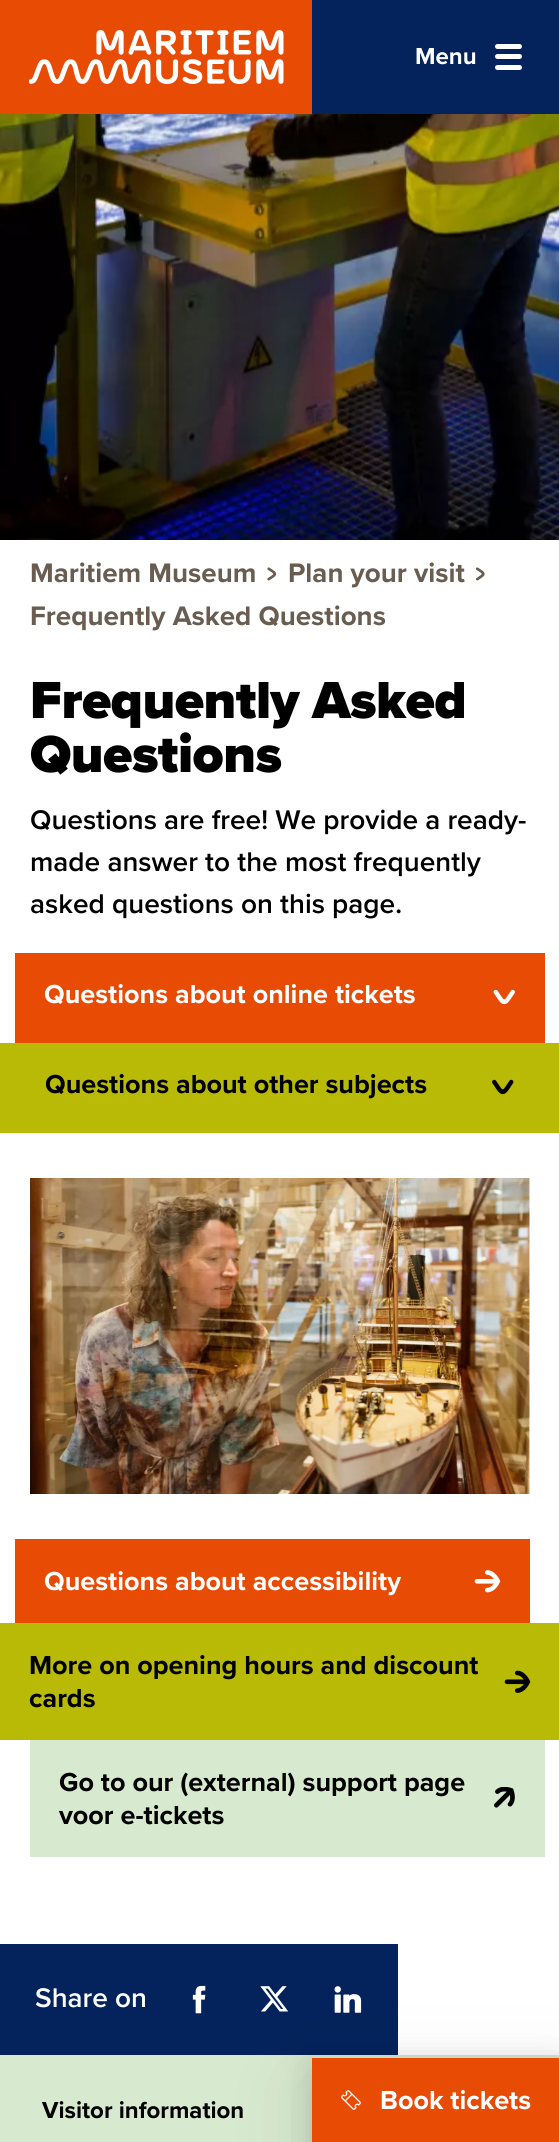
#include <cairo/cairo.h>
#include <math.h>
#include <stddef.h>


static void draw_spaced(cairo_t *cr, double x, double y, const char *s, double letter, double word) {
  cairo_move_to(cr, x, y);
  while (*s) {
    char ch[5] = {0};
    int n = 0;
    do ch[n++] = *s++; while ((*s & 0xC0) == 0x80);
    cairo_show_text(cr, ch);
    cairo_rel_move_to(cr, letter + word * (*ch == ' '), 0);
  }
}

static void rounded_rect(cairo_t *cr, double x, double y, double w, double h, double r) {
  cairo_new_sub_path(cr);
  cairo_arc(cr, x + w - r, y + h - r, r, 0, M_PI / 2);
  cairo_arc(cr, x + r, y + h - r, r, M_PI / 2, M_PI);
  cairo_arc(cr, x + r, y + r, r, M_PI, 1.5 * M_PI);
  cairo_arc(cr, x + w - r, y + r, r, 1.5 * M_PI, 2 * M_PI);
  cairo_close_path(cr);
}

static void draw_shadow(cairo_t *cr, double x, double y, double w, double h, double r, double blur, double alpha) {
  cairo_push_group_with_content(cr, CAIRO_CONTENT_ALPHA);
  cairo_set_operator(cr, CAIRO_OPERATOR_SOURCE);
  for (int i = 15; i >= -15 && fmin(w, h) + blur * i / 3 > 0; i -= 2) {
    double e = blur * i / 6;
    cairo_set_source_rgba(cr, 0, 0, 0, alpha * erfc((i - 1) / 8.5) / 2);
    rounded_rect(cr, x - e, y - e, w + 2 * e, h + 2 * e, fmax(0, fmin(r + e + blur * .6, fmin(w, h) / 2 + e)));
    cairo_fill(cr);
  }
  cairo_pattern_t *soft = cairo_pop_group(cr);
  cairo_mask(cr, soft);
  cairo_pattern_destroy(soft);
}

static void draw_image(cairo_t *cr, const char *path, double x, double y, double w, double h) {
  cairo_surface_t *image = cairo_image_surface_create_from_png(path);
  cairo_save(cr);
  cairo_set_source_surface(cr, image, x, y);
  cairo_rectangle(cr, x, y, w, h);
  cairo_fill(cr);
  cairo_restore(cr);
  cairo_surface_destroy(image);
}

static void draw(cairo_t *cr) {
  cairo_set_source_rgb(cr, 1, 1, 1);
  cairo_paint(cr);
  cairo_set_source_rgb(cr, 4 / 255.0, 35 / 255.0, 92 / 255.0);
  cairo_rectangle(cr, 312, 0, 247, 114);
  cairo_fill(cr);
  cairo_set_source_rgb(cr, 232 / 255.0, 75 / 255.0, 4 / 255.0);
  cairo_rectangle(cr, 0, 0, 312, 114);
  cairo_fill(cr);
  draw_image(cr, "images/1.png", 29, 30, 255, 54);
  cairo_set_source_rgb(cr, 1, 1, 1);
  rounded_rect(cr, 495, 44, 27, 5, 2.5);
  cairo_fill(cr);
  rounded_rect(cr, 495, 54, 27, 5, 2.5);
  cairo_fill(cr);
  rounded_rect(cr, 495, 65, 27, 5, 2.5);
  cairo_fill(cr);
  draw_image(cr, "images/2.png", 0, 114, 559, 426);
  draw_image(cr, "images/3.png", 267, 567, 10, 14);
  draw_image(cr, "images/4.png", 476, 567, 9, 14);
  cairo_set_source_rgb(cr, 232 / 255.0, 75 / 255.0, 4 / 255.0);
  cairo_rectangle(cr, 15, 953, 530, 90);
  cairo_fill(cr);
  draw_image(cr, "images/5.png", 493, 989, 22, 16);
  cairo_set_source_rgb(cr, 185 / 255.0, 186 / 255.0, 5 / 255.0);
  cairo_rectangle(cr, 0, 1043, 559, 90);
  cairo_fill(cr);
  draw_image(cr, "images/6.png", 492, 1079, 22, 16);
  draw_image(cr, "images/7.png", 30, 1178, 500, 316);
  cairo_set_source_rgb(cr, 232 / 255.0, 75 / 255.0, 4 / 255.0);
  cairo_rectangle(cr, 15, 1539, 515, 84);
  cairo_fill(cr);
  draw_image(cr, "images/8.png", 474, 1570, 27, 23);
  cairo_set_source_rgb(cr, 185 / 255.0, 186 / 255.0, 5 / 255.0);
  cairo_rectangle(cr, 0, 1623, 559, 117);
  cairo_fill(cr);
  draw_image(cr, "images/9.png", 504, 1670, 27, 23);
  cairo_set_source_rgb(cr, 215 / 255.0, 233 / 255.0, 206 / 255.0);
  cairo_rectangle(cr, 30, 1740, 515, 117);
  cairo_fill(cr);
  draw_image(cr, "images/10.png", 494, 1787, 21, 21);
  cairo_set_source_rgb(cr, 4 / 255.0, 35 / 255.0, 92 / 255.0);
  cairo_rectangle(cr, 0, 1944, 398, 111);
  cairo_fill(cr);
  draw_image(cr, "images/11.png", 192, 1985, 14, 29);
  draw_image(cr, "images/12.png", 260, 1986, 28, 26);
  draw_image(cr, "images/13.png", 334, 1986, 28, 27);
  cairo_set_source_rgb(cr, 215 / 255.0, 233 / 255.0, 206 / 255.0);
  cairo_rectangle(cr, 0, 2055, 559, 87);
  cairo_fill(cr);
  cairo_set_source_rgb(cr, 17 / 255.0, 17 / 255.0, 26 / 255.0);
  draw_shadow(cr, 312, 2082, 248, 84, 0, 42, 0.1);
  draw_shadow(cr, 312, 2070, 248, 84, 0, 18, 0.1);
  draw_shadow(cr, 312, 2064, 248, 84, 0, 12, 0.1);
  cairo_set_source_rgb(cr, 232 / 255.0, 75 / 255.0, 4 / 255.0);
  cairo_rectangle(cr, 312, 2058, 247, 84);
  cairo_fill(cr);
  draw_image(cr, "images/14.png", 341, 2090, 20, 20);
  cairo_select_font_face(cr, "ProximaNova", CAIRO_FONT_SLANT_NORMAL, CAIRO_FONT_WEIGHT_BOLD);
  cairo_set_font_size(cr, 24);
  cairo_set_source_rgb(cr, 1, 1, 1);
  cairo_move_to(cr, 415, 64);
  cairo_show_text(cr, "Menu");
  cairo_set_font_size(cr, 27.75);
  cairo_set_source_rgb(cr, 105 / 255.0, 92 / 255.0, 80 / 255.0);
  cairo_move_to(cr, 30, 582);
  cairo_show_text(cr, "Maritiem Museum");
  cairo_move_to(cr, 288, 582);
  cairo_show_text(cr, "Plan your visit");
  cairo_move_to(cr, 30, 625);
  cairo_show_text(cr, "Frequently Asked Questions");
  cairo_select_font_face(cr, "Proxima Nova Black", CAIRO_FONT_SLANT_NORMAL, CAIRO_FONT_WEIGHT_NORMAL);
  cairo_set_font_size(cr, 54);
  cairo_set_source_rgb(cr, 0, 0, 0);
  draw_spaced(cr, 30, 718, "Frequently Asked", -0.5, 0);
  draw_spaced(cr, 30, 772, "Questions", -0.5, 0);
  cairo_select_font_face(cr, "Proxima Nova SemiBold", CAIRO_FONT_SLANT_NORMAL, CAIRO_FONT_WEIGHT_NORMAL);
  cairo_set_font_size(cr, 28);
  cairo_move_to(cr, 30, 829);
  cairo_show_text(cr, "Questions are free! We provide a ready-");
  cairo_move_to(cr, 30, 871);
  cairo_show_text(cr, "made answer to the most frequently");
  cairo_move_to(cr, 30, 913);
  cairo_show_text(cr, "asked questions on this page.");
  cairo_select_font_face(cr, "ProximaNova", CAIRO_FONT_SLANT_NORMAL, CAIRO_FONT_WEIGHT_BOLD);
  cairo_set_font_size(cr, 27);
  cairo_set_source_rgb(cr, 1, 1, 1);
  cairo_move_to(cr, 44, 1003);
  cairo_show_text(cr, "Questions about online tickets");
  cairo_set_source_rgb(cr, 0, 0, 0);
  cairo_move_to(cr, 45, 1093);
  cairo_show_text(cr, "Questions about other subjects");
  cairo_set_source_rgb(cr, 1, 1, 1);
  cairo_move_to(cr, 44, 1590);
  cairo_show_text(cr, "Questions about accessibility");
  cairo_set_source_rgb(cr, 0, 0, 0);
  cairo_move_to(cr, 29, 1674);
  cairo_show_text(cr, "More on opening hours and discount");
  cairo_move_to(cr, 29, 1707);
  cairo_show_text(cr, "cards");
  cairo_move_to(cr, 59, 1791);
  cairo_show_text(cr, "Go to our (external) support page");
  cairo_move_to(cr, 59, 1824);
  cairo_show_text(cr, "voor e-tickets");
  cairo_select_font_face(cr, "Proxima Nova SemiBold", CAIRO_FONT_SLANT_NORMAL, CAIRO_FONT_WEIGHT_NORMAL);
  cairo_set_font_size(cr, 28);
  cairo_set_source_rgb(cr, 1, 1, 1);
  cairo_move_to(cr, 35, 2007);
  cairo_show_text(cr, "Share on");
  cairo_select_font_face(cr, "ProximaNova", CAIRO_FONT_SLANT_NORMAL, CAIRO_FONT_WEIGHT_BOLD);
  cairo_set_font_size(cr, 24);
  cairo_set_source_rgb(cr, 0, 0, 0);
  cairo_move_to(cr, 42, 2118);
  cairo_show_text(cr, "Visitor information");
  cairo_set_font_size(cr, 27);
  cairo_set_source_rgb(cr, 1, 1, 1);
  cairo_move_to(cr, 380, 2109);
  cairo_show_text(cr, "Book tickets");
}

int main(void) {
  cairo_surface_t *surface = cairo_image_surface_create(CAIRO_FORMAT_RGB24, 559, 2142);
  cairo_t *cr = cairo_create(surface);
  cairo_font_options_t *options = cairo_font_options_create();
  cairo_font_options_set_hint_metrics(options, CAIRO_HINT_METRICS_OFF);
  cairo_font_options_set_hint_style(options, CAIRO_HINT_STYLE_NONE);
  cairo_set_font_options(cr, options);
  cairo_set_miter_limit(cr, 4);
  draw(cr);
  cairo_surface_write_to_png(surface, "out.png");
  cairo_font_options_destroy(options);
  cairo_destroy(cr);
  cairo_surface_destroy(surface);
  return 0;
}
